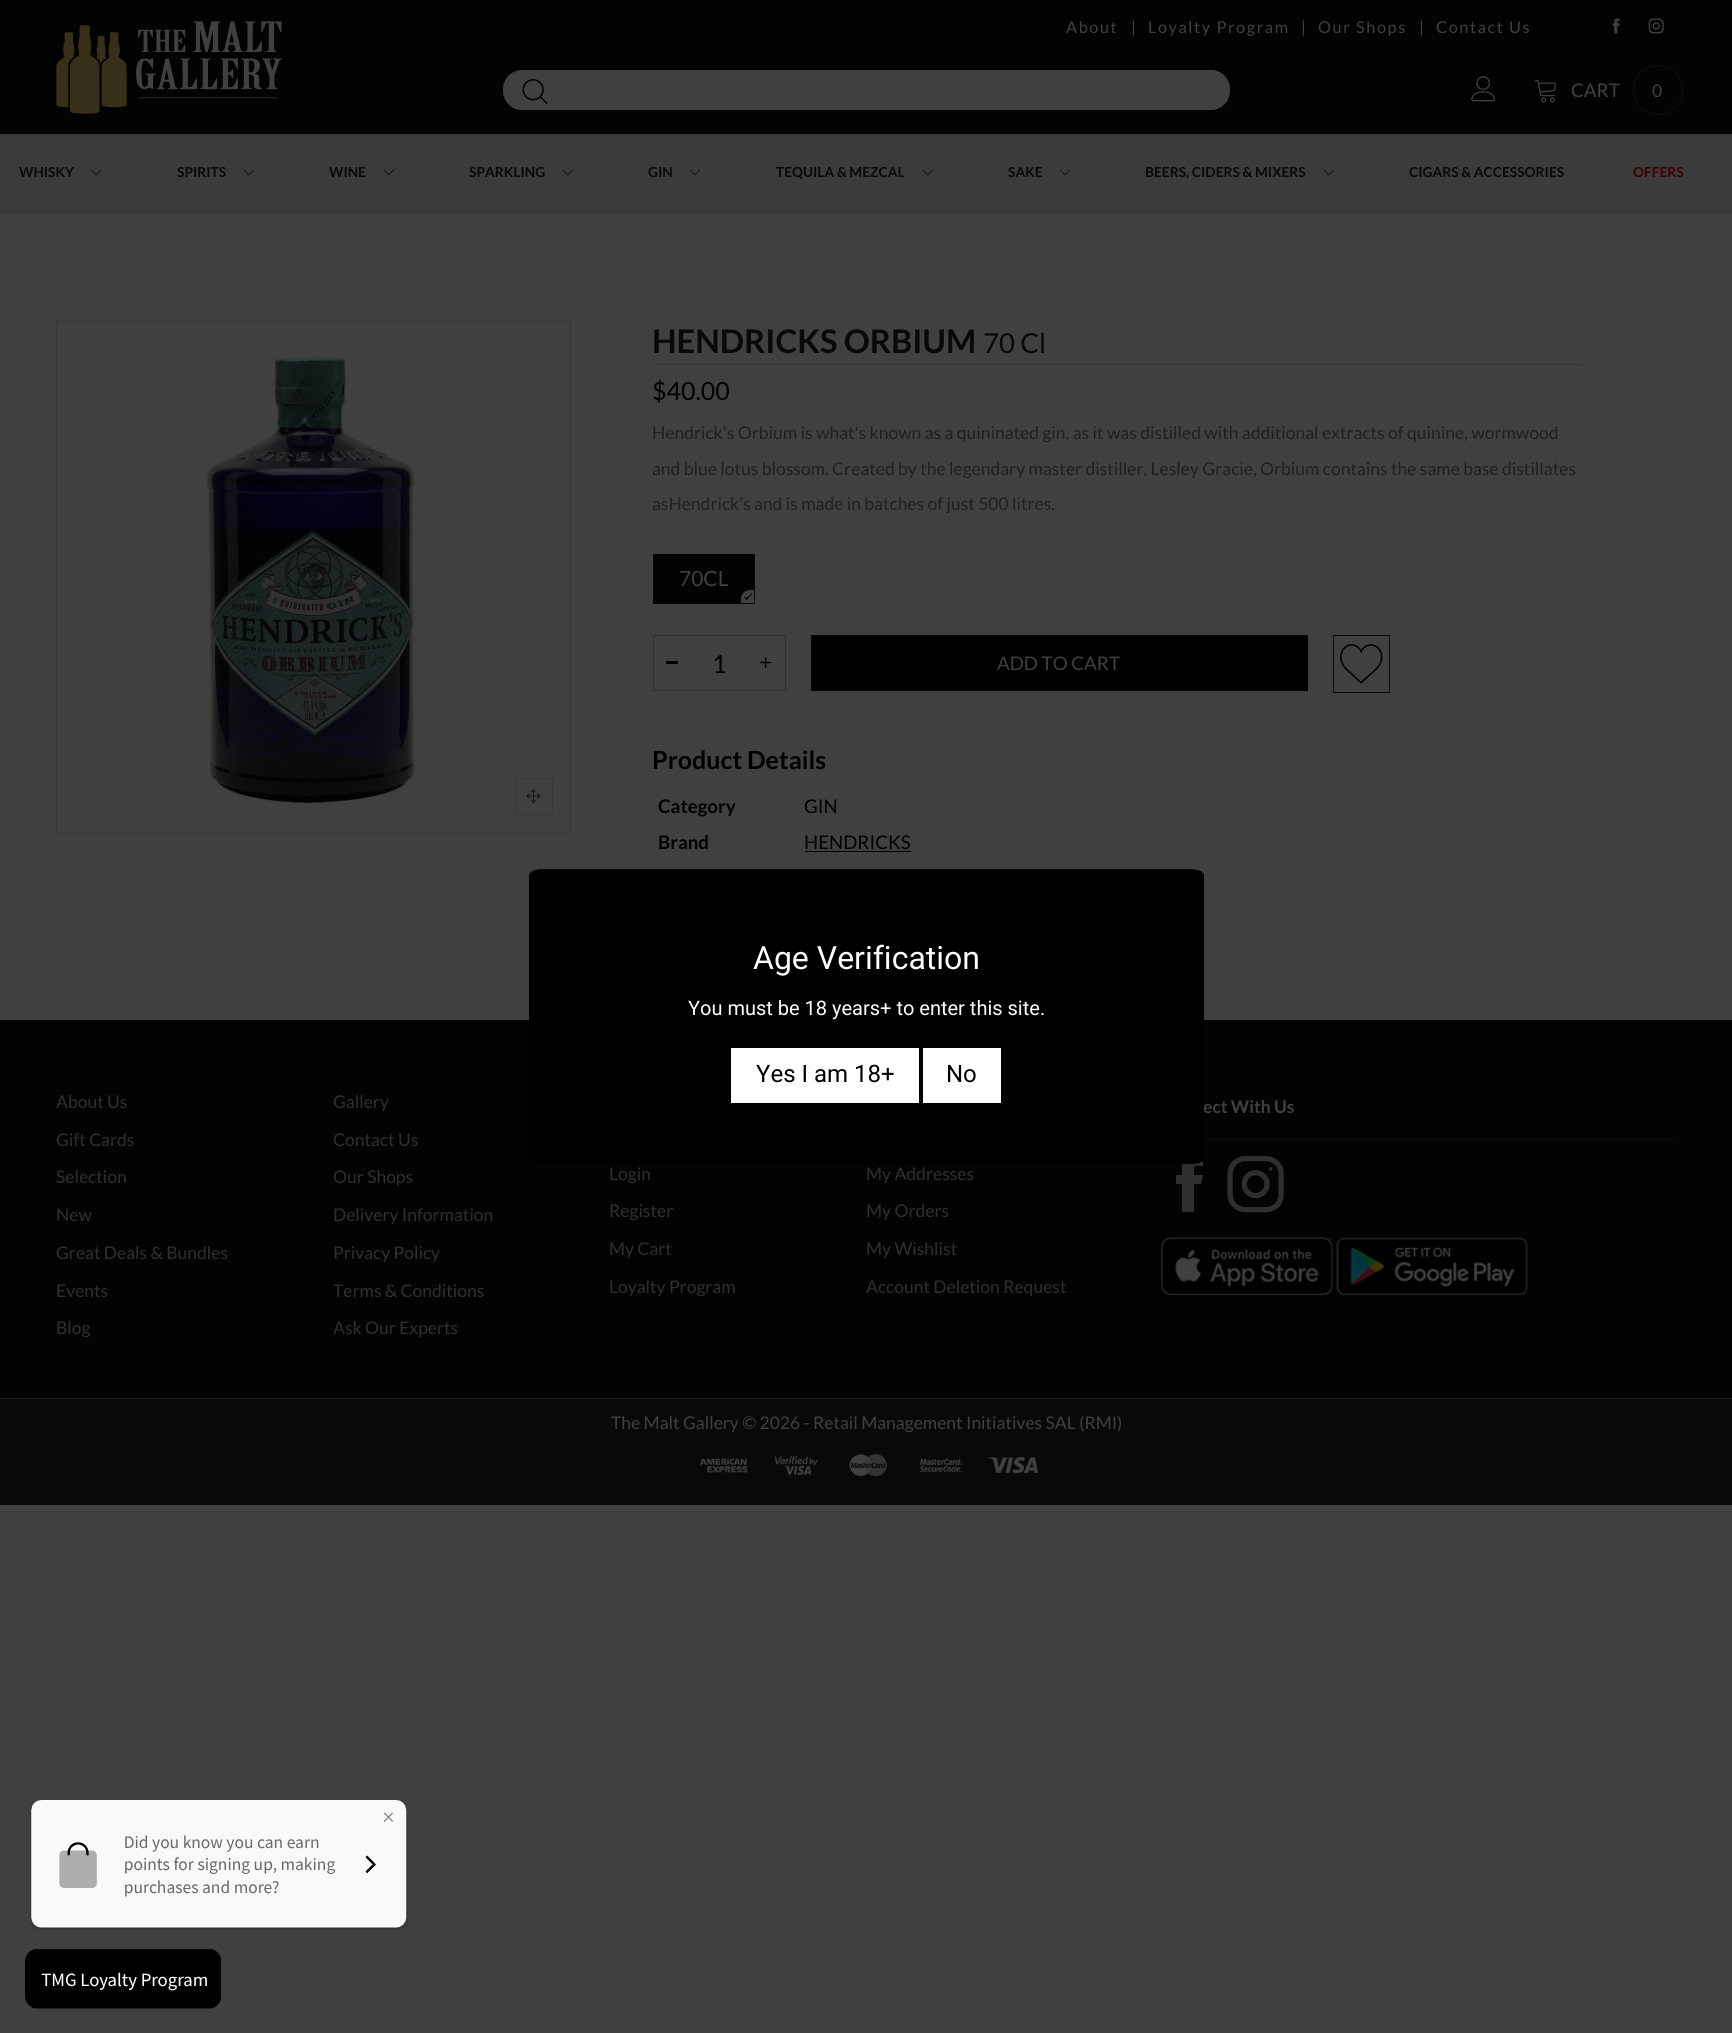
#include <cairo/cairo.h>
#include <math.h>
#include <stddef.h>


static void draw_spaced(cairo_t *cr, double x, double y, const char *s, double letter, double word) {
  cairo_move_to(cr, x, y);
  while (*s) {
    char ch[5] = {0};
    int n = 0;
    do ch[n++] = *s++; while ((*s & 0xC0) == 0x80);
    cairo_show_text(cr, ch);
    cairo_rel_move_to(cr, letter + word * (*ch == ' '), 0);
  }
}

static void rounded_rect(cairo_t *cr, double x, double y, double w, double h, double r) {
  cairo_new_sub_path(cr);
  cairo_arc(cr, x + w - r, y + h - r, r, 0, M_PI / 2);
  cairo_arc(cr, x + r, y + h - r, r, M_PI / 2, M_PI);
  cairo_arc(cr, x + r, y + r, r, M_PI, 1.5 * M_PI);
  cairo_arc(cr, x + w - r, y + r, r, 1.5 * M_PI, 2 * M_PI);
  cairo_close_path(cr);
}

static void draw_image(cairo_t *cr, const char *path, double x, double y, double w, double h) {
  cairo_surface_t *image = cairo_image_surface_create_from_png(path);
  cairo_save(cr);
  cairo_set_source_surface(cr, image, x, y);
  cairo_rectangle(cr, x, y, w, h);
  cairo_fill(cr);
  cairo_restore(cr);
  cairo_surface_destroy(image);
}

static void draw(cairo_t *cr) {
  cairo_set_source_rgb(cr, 64 / 255.0, 64 / 255.0, 64 / 255.0);
  cairo_paint(cr);
  cairo_set_source_rgb(cr, 4 / 255.0, 3 / 255.0, 3 / 255.0);
  cairo_rectangle(cr, 0, 0, 1732, 134);
  cairo_fill(cr);
  draw_image(cr, "images/1.png", 1612, 18, 8, 16);
  draw_image(cr, "images/2.png", 1648, 18, 16, 16);
  draw_image(cr, "images/3.png", 56, 21, 227, 93);
  cairo_set_source_rgb(cr, 64 / 255.0, 64 / 255.0, 64 / 255.0);
  rounded_rect(cr, 503.5, 70.5, 726, 39, 18.5);
  cairo_fill_preserve(cr);
  cairo_set_line_width(cr, 1);
  cairo_stroke(cr);
  draw_image(cr, "images/4.png", 522, 79, 26, 25);
  draw_image(cr, "images/5.png", 1471, 76, 24, 26);
  draw_image(cr, "images/6.png", 1535, 80, 21, 23);
  cairo_arc(cr, 1658, 90, 24.5, 0, 2 * M_PI);
  cairo_set_source_rgb(cr, 13 / 255.0, 12 / 255.0, 12 / 255.0);
  cairo_stroke(cr);
  cairo_set_source_rgb(cr, 59 / 255.0, 59 / 255.0, 59 / 255.0);
  cairo_rectangle(cr, 0, 134, 1732, 81);
  cairo_fill(cr);
  draw_image(cr, "images/7.png", 91, 169, 11, 7);
  draw_image(cr, "images/8.png", 243, 169, 11, 7);
  draw_image(cr, "images/8.png", 383, 169, 11, 7);
  draw_image(cr, "images/9.png", 562, 169, 11, 7);
  draw_image(cr, "images/10.png", 690, 169, 10, 7);
  draw_image(cr, "images/9.png", 922, 169, 11, 7);
  draw_image(cr, "images/10.png", 1060, 169, 10, 7);
  draw_image(cr, "images/8.png", 1323, 169, 11, 7);
  cairo_rectangle(cr, 56.5, 321.5, 514, 512);
  cairo_set_source_rgb(cr, 56 / 255.0, 56 / 255.0, 56 / 255.0);
  cairo_stroke(cr);
  draw_image(cr, "images/11.png", 206, 356, 209, 448);
  cairo_rectangle(cr, 515.5, 778.5, 37, 36);
  cairo_stroke(cr);
  draw_image(cr, "images/12.png", 526, 789, 15, 14);
  cairo_set_source_rgb(cr, 55 / 255.0, 55 / 255.0, 55 / 255.0);
  cairo_rectangle(cr, 653, 364, 930, 1);
  cairo_fill(cr);
  cairo_set_source_rgb(cr, 4 / 255.0, 3 / 255.0, 3 / 255.0);
  cairo_rectangle(cr, 653, 554, 102, 50);
  cairo_fill(cr);
  cairo_set_source_rgb(cr, 64 / 255.0, 64 / 255.0, 64 / 255.0);
  cairo_new_path(cr);
  cairo_move_to(cr, 750, 590);
  cairo_line_to(cr, 754, 590);
  cairo_line_to(cr, 754, 603);
  cairo_line_to(cr, 741, 603);
  cairo_line_to(cr, 741, 599);
  cairo_curve_to(cr, 741, 594, 745, 590, 750, 590);
  cairo_close_path(cr);
  cairo_fill(cr);
  cairo_set_source_rgb(cr, 0, 0, 0);
  cairo_new_path(cr);
  cairo_move_to(cr, 745.5, 599);
  cairo_line_to(cr, 752, 593);
  cairo_line_to(cr, 752.5, 593.5);
  cairo_line_to(cr, 746.5, 600);
  cairo_close_path(cr);
  cairo_fill(cr);
  cairo_new_path(cr);
  cairo_move_to(cr, 744, 597);
  cairo_line_to(cr, 744.5, 596.5);
  cairo_line_to(cr, 747.5, 599);
  cairo_line_to(cr, 746.5, 600);
  cairo_close_path(cr);
  cairo_fill(cr);
  cairo_rectangle(cr, 653.5, 635.5, 132, 55);
  cairo_set_source_rgb(cr, 49 / 255.0, 49 / 255.0, 49 / 255.0);
  cairo_stroke(cr);
  cairo_set_source_rgb(cr, 0, 0, 0);
  cairo_rectangle(cr, 666, 661, 12, 3);
  cairo_fill(cr);
  draw_image(cr, "images/13.png", 760, 657, 11, 11);
  cairo_rectangle(cr, 811, 635, 497, 56);
  cairo_fill(cr);
  cairo_rectangle(cr, 1333.5, 635.5, 56, 57);
  cairo_set_source_rgb(cr, 4 / 255.0, 3 / 255.0, 3 / 255.0);
  cairo_stroke(cr);
  draw_image(cr, "images/14.png", 1340, 644, 43, 40);
  cairo_set_source_rgb(cr, 0, 0, 0);
  cairo_rectangle(cr, 805, 851, 106, 1);
  cairo_fill(cr);
  cairo_set_source_rgb(cr, 4 / 255.0, 3 / 255.0, 3 / 255.0);
  cairo_rectangle(cr, 0, 1020, 1732, 378);
  cairo_fill(cr);
  cairo_set_source_rgb(cr, 12 / 255.0, 11 / 255.0, 11 / 255.0);
  cairo_rectangle(cr, 1204, 1139, 472, 1);
  cairo_fill(cr);
  cairo_set_source_rgb(cr, 47 / 255.0, 47 / 255.0, 47 / 255.0);
  cairo_new_path(cr);
  cairo_move_to(cr, 1182, 1167);
  cairo_line_to(cr, 1182, 1175);
  cairo_line_to(cr, 1176, 1175);
  cairo_line_to(cr, 1176, 1184);
  cairo_line_to(cr, 1182, 1184);
  cairo_line_to(cr, 1182, 1212);
  cairo_line_to(cr, 1194, 1212);
  cairo_line_to(cr, 1194, 1184);
  cairo_line_to(cr, 1201, 1184);
  cairo_line_to(cr, 1203, 1175);
  cairo_line_to(cr, 1194, 1175);
  cairo_curve_to(cr, 1194, 1165, 1193, 1166, 1203, 1166);
  cairo_line_to(cr, 1203, 1156);
  cairo_curve_to(cr, 1194, 1156, 1182, 1155, 1182, 1167);
  cairo_close_path(cr);
  cairo_fill(cr);
  draw_image(cr, "images/15.png", 1227, 1156, 57, 57);
  draw_image(cr, "images/16.png", 1161, 1237, 172, 58);
  draw_image(cr, "images/17.png", 1336, 1237, 192, 58);
  cairo_set_source_rgb(cr, 28 / 255.0, 28 / 255.0, 28 / 255.0);
  cairo_rectangle(cr, 0, 1398, 1732, 1);
  cairo_fill(cr);
  cairo_set_source_rgb(cr, 10 / 255.0, 9 / 255.0, 9 / 255.0);
  cairo_rectangle(cr, 0, 1399, 1732, 106);
  cairo_fill(cr);
  draw_image(cr, "images/18.png", 699, 1454, 340, 23);
  draw_image(cr, "images/19.png", 30, 1800, 378, 130);
  draw_image(cr, "images/20.png", 25, 1949, 197, 60);
  cairo_select_font_face(cr, "Lato", CAIRO_FONT_SLANT_NORMAL, CAIRO_FONT_WEIGHT_NORMAL);
  cairo_set_font_size(cr, 16.25);
  cairo_set_source_rgb(cr, 64 / 255.0, 64 / 255.0, 64 / 255.0);
  draw_spaced(cr, 1066, 33, "About", 1.6, 0);
  cairo_move_to(cr, 1131, 33);
  cairo_show_text(cr, "|");
  draw_spaced(cr, 1148, 33, "Loyalty Program", 1.6, 0);
  cairo_move_to(cr, 1301, 33);
  cairo_show_text(cr, "|");
  draw_spaced(cr, 1318, 33, "Our Shops", 1.6, 0);
  cairo_move_to(cr, 1419, 33);
  cairo_show_text(cr, "|");
  draw_spaced(cr, 1436, 33, "Contact Us", 1.6, 0);
  cairo_set_font_size(cr, 18.75);
  cairo_move_to(cr, 1571, 97);
  cairo_show_text(cr, "CART");
  cairo_set_font_size(cr, 17.5);
  cairo_move_to(cr, 1652, 97);
  cairo_show_text(cr, "0");
  cairo_select_font_face(cr, "Lato", CAIRO_FONT_SLANT_NORMAL, CAIRO_FONT_WEIGHT_BOLD);
  cairo_set_font_size(cr, 13.75);
  cairo_set_source_rgb(cr, 9 / 255.0, 9 / 255.0, 9 / 255.0);
  cairo_move_to(cr, 19, 177);
  cairo_show_text(cr, "WHISKY");
  cairo_move_to(cr, 177, 177);
  cairo_show_text(cr, "SPIRITS");
  cairo_move_to(cr, 329, 177);
  cairo_show_text(cr, "WINE");
  cairo_move_to(cr, 469, 177);
  cairo_show_text(cr, "SPARKLING");
  cairo_move_to(cr, 648, 177);
  cairo_show_text(cr, "GIN");
  cairo_move_to(cr, 776, 177);
  cairo_show_text(cr, "TEQUILA & MEZCAL");
  cairo_move_to(cr, 1008, 177);
  cairo_show_text(cr, "SAKE");
  cairo_move_to(cr, 1145, 177);
  cairo_show_text(cr, "BEERS, CIDERS & MIXERS");
  cairo_move_to(cr, 1409, 177);
  cairo_show_text(cr, "CIGARS & ACCESSORIES");
  cairo_set_source_rgb(cr, 64 / 255.0, 0, 0);
  cairo_move_to(cr, 1633, 177);
  cairo_show_text(cr, "OFFERS");
  cairo_set_font_size(cr, 32.5);
  cairo_set_source_rgb(cr, 9 / 255.0, 9 / 255.0, 9 / 255.0);
  cairo_move_to(cr, 652, 353);
  cairo_show_text(cr, "HENDRICKS ORBIUM");
  cairo_select_font_face(cr, "Lato", CAIRO_FONT_SLANT_NORMAL, CAIRO_FONT_WEIGHT_NORMAL);
  cairo_set_font_size(cr, 27.5);
  cairo_move_to(cr, 983, 353);
  cairo_show_text(cr, "70 Cl");
  cairo_set_font_size(cr, 25);
  cairo_set_source_rgb(cr, 0, 0, 0);
  cairo_move_to(cr, 652, 400);
  cairo_show_text(cr, "$40.00");
  cairo_set_font_size(cr, 17.5);
  cairo_set_source_rgb(cr, 32 / 255.0, 32 / 255.0, 32 / 255.0);
  cairo_move_to(cr, 652, 439);
  cairo_show_text(cr, "Hendrick's Orbium is what's known as a quininated gin, as it was distilled with additional extracts of quinine, wormwood");
  cairo_move_to(cr, 652, 475);
  cairo_show_text(cr, "and blue lotus blossom. Created by the legendary master distiller, Lesley Gracie, Orbium contains the same base distillates");
  cairo_move_to(cr, 652, 510);
  cairo_show_text(cr, "asHendrick’s and is made in batches of just 500 litres.");
  cairo_set_font_size(cr, 21);
  cairo_set_source_rgb(cr, 64 / 255.0, 64 / 255.0, 64 / 255.0);
  cairo_move_to(cr, 679, 586);
  cairo_show_text(cr, "70CL");
  cairo_set_font_size(cr, 25);
  cairo_set_source_rgb(cr, 0, 0, 0);
  cairo_move_to(cr, 712, 673);
  cairo_show_text(cr, "1");
  cairo_set_font_size(cr, 18.75);
  cairo_set_source_rgb(cr, 64 / 255.0, 64 / 255.0, 64 / 255.0);
  cairo_move_to(cr, 997, 670);
  cairo_show_text(cr, "ADD TO CART");
  cairo_select_font_face(cr, "Lato", CAIRO_FONT_SLANT_NORMAL, CAIRO_FONT_WEIGHT_BOLD);
  cairo_set_font_size(cr, 25);
  cairo_set_source_rgb(cr, 0, 0, 0);
  cairo_move_to(cr, 652, 769);
  cairo_show_text(cr, "Product Details");
  cairo_set_font_size(cr, 18.75);
  cairo_move_to(cr, 658, 813);
  cairo_show_text(cr, "Category");
  cairo_select_font_face(cr, "Lato", CAIRO_FONT_SLANT_NORMAL, CAIRO_FONT_WEIGHT_NORMAL);
  cairo_move_to(cr, 804, 813);
  cairo_show_text(cr, "GIN");
  cairo_select_font_face(cr, "Lato", CAIRO_FONT_SLANT_NORMAL, CAIRO_FONT_WEIGHT_BOLD);
  cairo_move_to(cr, 658, 849);
  cairo_show_text(cr, "Brand");
  cairo_select_font_face(cr, "Lato", CAIRO_FONT_SLANT_NORMAL, CAIRO_FONT_WEIGHT_NORMAL);
  cairo_move_to(cr, 804, 849);
  cairo_show_text(cr, "HENDRICKS");
  cairo_set_font_size(cr, 17.5);
  cairo_set_source_rgb(cr, 47 / 255.0, 47 / 255.0, 47 / 255.0);
  cairo_move_to(cr, 56, 1108);
  cairo_show_text(cr, "About Us");
  cairo_move_to(cr, 56, 1146);
  cairo_show_text(cr, "Gift Cards");
  cairo_move_to(cr, 56, 1183);
  cairo_show_text(cr, "Selection");
  cairo_move_to(cr, 56, 1221);
  cairo_show_text(cr, "New");
  cairo_move_to(cr, 56, 1259);
  cairo_show_text(cr, "Great Deals & Bundles");
  cairo_move_to(cr, 56, 1297);
  cairo_show_text(cr, "Events");
  cairo_move_to(cr, 56, 1334);
  cairo_show_text(cr, "Blog");
  cairo_move_to(cr, 333, 1108);
  cairo_show_text(cr, "Gallery");
  cairo_move_to(cr, 333, 1146);
  cairo_show_text(cr, "Contact Us");
  cairo_move_to(cr, 333, 1183);
  cairo_show_text(cr, "Our Shops");
  cairo_move_to(cr, 333, 1221);
  cairo_show_text(cr, "Delivery Information");
  cairo_move_to(cr, 333, 1259);
  cairo_show_text(cr, "Privacy Policy");
  cairo_move_to(cr, 333, 1297);
  cairo_show_text(cr, "Terms & Conditions");
  cairo_move_to(cr, 333, 1334);
  cairo_show_text(cr, "Ask Our Experts");
  cairo_select_font_face(cr, "Lato", CAIRO_FONT_SLANT_NORMAL, CAIRO_FONT_WEIGHT_BOLD);
  cairo_set_source_rgb(cr, 64 / 255.0, 64 / 255.0, 64 / 255.0);
  cairo_move_to(cr, 1203, 1113);
  cairo_show_text(cr, "ect With Us");
  cairo_set_source_rgb(cr, 0, 0, 0);
  cairo_new_path(cr);
  cairo_move_to(cr, 542, 869);
  cairo_line_to(cr, 1190, 869);
  cairo_curve_to(cr, 1198, 869, 1204, 872, 1204, 875);
  cairo_line_to(cr, 1204, 1159);
  cairo_curve_to(cr, 1204, 1162, 1198, 1164, 1190, 1164);
  cairo_line_to(cr, 542, 1164);
  cairo_curve_to(cr, 535, 1164, 529, 1162, 529, 1159);
  cairo_line_to(cr, 529, 875);
  cairo_curve_to(cr, 529, 872, 535, 869, 542, 869);
  cairo_close_path(cr);
  cairo_fill(cr);
  cairo_set_source_rgb(cr, 1, 1, 1);
  cairo_rectangle(cr, 923, 1048, 78, 55);
  cairo_fill(cr);
  cairo_select_font_face(cr, "Roboto", CAIRO_FONT_SLANT_NORMAL, CAIRO_FONT_WEIGHT_NORMAL);
  cairo_set_font_size(cr, 24);
  cairo_set_source_rgb(cr, 0, 0, 0);
  cairo_move_to(cr, 946, 1082);
  cairo_show_text(cr, "No");
  cairo_set_source_rgb(cr, 1, 1, 1);
  cairo_rectangle(cr, 731, 1048, 188, 55);
  cairo_fill(cr);
  cairo_set_source_rgb(cr, 0, 0, 0);
  cairo_move_to(cr, 756, 1082);
  cairo_show_text(cr, "Yes I am 18+");
  cairo_set_font_size(cr, 20);
  cairo_set_source_rgb(cr, 1, 1, 1);
  cairo_move_to(cr, 688, 1015);
  cairo_show_text(cr, "You must be 18 years+ to enter this site.");
  cairo_set_font_size(cr, 32);
  cairo_move_to(cr, 753, 969);
  cairo_show_text(cr, "Age Verification");
  cairo_select_font_face(cr, "Lato", CAIRO_FONT_SLANT_NORMAL, CAIRO_FONT_WEIGHT_NORMAL);
  cairo_set_font_size(cr, 17.5);
  cairo_set_source_rgb(cr, 47 / 255.0, 47 / 255.0, 47 / 255.0);
  cairo_move_to(cr, 609, 1180);
  cairo_show_text(cr, "Login");
  cairo_move_to(cr, 609, 1217);
  cairo_show_text(cr, "Register");
  cairo_move_to(cr, 609, 1255);
  cairo_show_text(cr, "My Cart");
  cairo_move_to(cr, 609, 1293);
  cairo_show_text(cr, "Loyalty Program");
  cairo_move_to(cr, 866, 1180);
  cairo_show_text(cr, "My Addresses");
  cairo_move_to(cr, 866, 1217);
  cairo_show_text(cr, "My Orders");
  cairo_move_to(cr, 866, 1255);
  cairo_show_text(cr, "My Wishlist");
  cairo_move_to(cr, 866, 1293);
  cairo_show_text(cr, "Account Deletion Request");
  cairo_set_source_rgb(cr, 64 / 255.0, 64 / 255.0, 64 / 255.0);
  cairo_move_to(cr, 611, 1429);
  cairo_show_text(cr, "The Malt Gallery © 2026 - Retail Management Initiatives SAL (RMI)");
}

int main(void) {
  cairo_surface_t *surface = cairo_image_surface_create(CAIRO_FORMAT_RGB24, 1732, 2033);
  cairo_t *cr = cairo_create(surface);
  cairo_font_options_t *options = cairo_font_options_create();
  cairo_font_options_set_hint_metrics(options, CAIRO_HINT_METRICS_OFF);
  cairo_font_options_set_hint_style(options, CAIRO_HINT_STYLE_NONE);
  cairo_set_font_options(cr, options);
  cairo_set_miter_limit(cr, 4);
  draw(cr);
  cairo_surface_write_to_png(surface, "out.png");
  cairo_font_options_destroy(options);
  cairo_destroy(cr);
  cairo_surface_destroy(surface);
  return 0;
}
